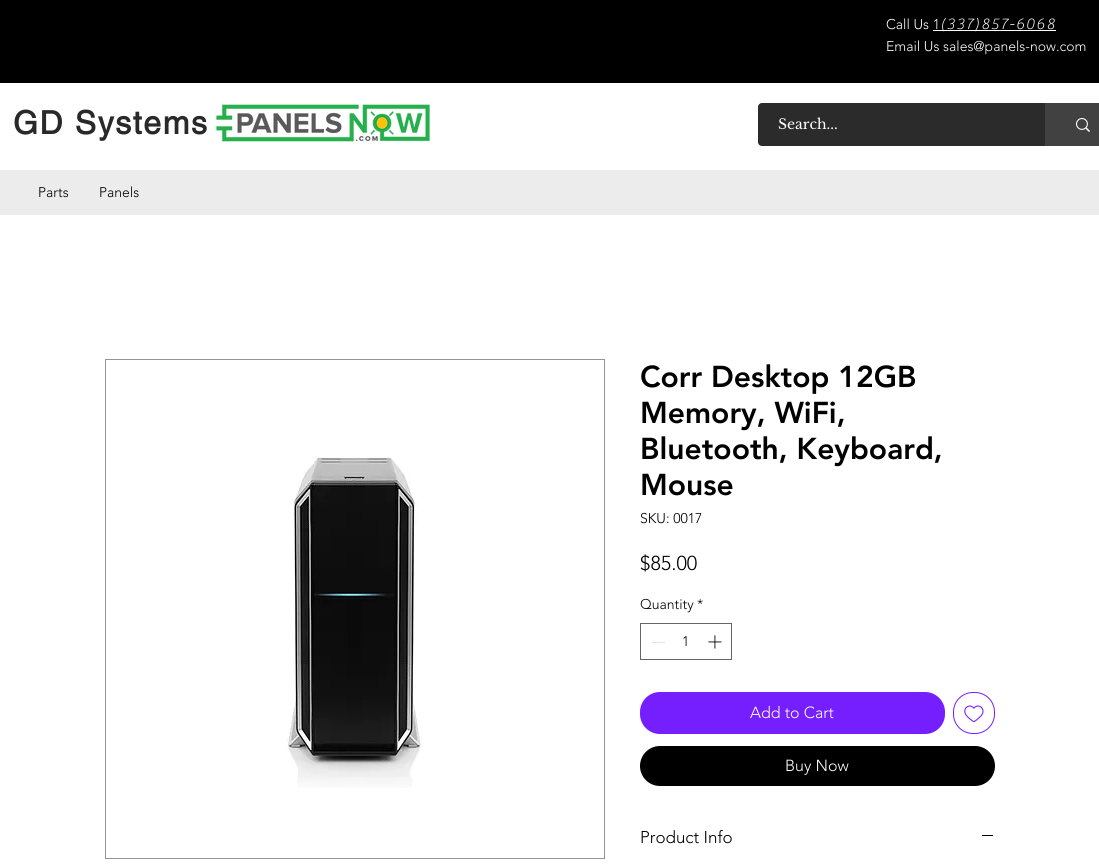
#include <cairo/cairo.h>
#include <math.h>
#include <stddef.h>


static void draw_spaced(cairo_t *cr, double x, double y, const char *s, double letter, double word) {
  cairo_move_to(cr, x, y);
  while (*s) {
    char ch[5] = {0};
    int n = 0;
    do ch[n++] = *s++; while ((*s & 0xC0) == 0x80);
    cairo_show_text(cr, ch);
    cairo_rel_move_to(cr, letter + word * (*ch == ' '), 0);
  }
}

static void rounded_rect(cairo_t *cr, double x, double y, double w, double h, double r) {
  cairo_new_sub_path(cr);
  cairo_arc(cr, x + w - r, y + h - r, r, 0, M_PI / 2);
  cairo_arc(cr, x + r, y + h - r, r, M_PI / 2, M_PI);
  cairo_arc(cr, x + r, y + r, r, M_PI, 1.5 * M_PI);
  cairo_arc(cr, x + w - r, y + r, r, 1.5 * M_PI, 2 * M_PI);
  cairo_close_path(cr);
}

static void draw_image(cairo_t *cr, const char *path, double x, double y, double w, double h) {
  cairo_surface_t *image = cairo_image_surface_create_from_png(path);
  cairo_save(cr);
  cairo_set_source_surface(cr, image, x, y);
  cairo_rectangle(cr, x, y, w, h);
  cairo_fill(cr);
  cairo_restore(cr);
  cairo_surface_destroy(image);
}

static void draw(cairo_t *cr) {
  cairo_set_source_rgb(cr, 1, 1, 1);
  cairo_paint(cr);
  cairo_set_source_rgb(cr, 0, 0, 0);
  cairo_rectangle(cr, 0, 0, 1099, 83);
  cairo_fill(cr);
  cairo_set_source_rgb(cr, 1, 1, 1);
  cairo_rectangle(cr, 933, 30, 123, 1);
  cairo_fill(cr);
  draw_image(cr, "images/1.png", 216, 104, 214, 38);
  cairo_set_source_rgb(cr, 43 / 255.0, 43 / 255.0, 43 / 255.0);
  rounded_rect(cr, 758, 103, 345, 43, 4);
  cairo_fill(cr);
  cairo_set_source_rgb(cr, 65 / 255.0, 65 / 255.0, 65 / 255.0);
  cairo_rectangle(cr, 1045, 103, 54, 43);
  cairo_fill(cr);
  draw_image(cr, "images/2.png", 1076, 118, 14, 14);
  cairo_set_source_rgb(cr, 237 / 255.0, 236 / 255.0, 236 / 255.0);
  cairo_rectangle(cr, 0, 170, 1099, 45);
  cairo_fill(cr);
  cairo_rectangle(cr, 105.5, 359.5, 499, 499);
  cairo_set_source_rgb(cr, 148 / 255.0, 148 / 255.0, 148 / 255.0);
  cairo_set_line_width(cr, 1);
  cairo_stroke(cr);
  draw_image(cr, "images/3.png", 286, 456, 136, 332);
  cairo_rectangle(cr, 640.5, 623.5, 91, 36);
  cairo_set_source_rgb(cr, 102 / 255.0, 102 / 255.0, 102 / 255.0);
  cairo_stroke(cr);
  cairo_set_source_rgb(cr, 227 / 255.0, 227 / 255.0, 227 / 255.0);
  cairo_rectangle(cr, 652, 642, 13, 1);
  cairo_fill(cr);
  draw_image(cr, "images/4.png", 708, 635, 14, 14);
  cairo_set_source_rgb(cr, 117 / 255.0, 31 / 255.0, 1);
  rounded_rect(cr, 640, 692, 305, 42, 20);
  cairo_fill(cr);
  rounded_rect(cr, 953.5, 692.5, 41, 41, 19.5);
  cairo_stroke(cr);
  draw_image(cr, "images/5.png", 964, 705, 20, 18);
  cairo_set_source_rgb(cr, 0, 0, 0);
  rounded_rect(cr, 640, 746, 355, 40, 20);
  cairo_fill(cr);
  cairo_rectangle(cr, 982, 835, 11, 1);
  cairo_fill(cr);
  cairo_select_font_face(cr, "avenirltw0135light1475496 Light", CAIRO_FONT_SLANT_NORMAL, CAIRO_FONT_WEIGHT_NORMAL);
  cairo_set_font_size(cr, 14);
  cairo_set_source_rgb(cr, 1, 1, 1);
  cairo_move_to(cr, 886, 29);
  cairo_show_text(cr, "Call Us 1");
  cairo_select_font_face(cr, "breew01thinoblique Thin", CAIRO_FONT_SLANT_NORMAL, CAIRO_FONT_WEIGHT_NORMAL);
  cairo_set_font_size(cr, 16);
  draw_spaced(cr, 940, 29, "(337)857-6068", 1.6, 0);
  cairo_select_font_face(cr, "avenirltw0135light1475496 Light", CAIRO_FONT_SLANT_NORMAL, CAIRO_FONT_WEIGHT_NORMAL);
  cairo_set_font_size(cr, 14);
  cairo_move_to(cr, 886, 51);
  cairo_show_text(cr, "Email Us sales@panels-now.com");
  cairo_select_font_face(cr, "helvetica", CAIRO_FONT_SLANT_NORMAL, CAIRO_FONT_WEIGHT_BOLD);
  cairo_set_font_size(cr, 32);
  cairo_set_source_rgb(cr, 41 / 255.0, 41 / 255.0, 41 / 255.0);
  draw_spaced(cr, 13, 134, "GD Systems", 1.6, 0);
  cairo_select_font_face(cr, "Libre Baskerville", CAIRO_FONT_SLANT_NORMAL, CAIRO_FONT_WEIGHT_NORMAL);
  cairo_set_font_size(cr, 14);
  cairo_set_source_rgb(cr, 1, 1, 1);
  cairo_move_to(cr, 778, 129);
  cairo_show_text(cr, "Search...");
  cairo_select_font_face(cr, "avenirltw0135light1475496 Light", CAIRO_FONT_SLANT_NORMAL, CAIRO_FONT_WEIGHT_NORMAL);
  cairo_set_source_rgb(cr, 0, 0, 0);
  cairo_move_to(cr, 38, 197);
  cairo_show_text(cr, "Parts");
  cairo_move_to(cr, 99, 197);
  cairo_show_text(cr, "Panels");
  cairo_select_font_face(cr, "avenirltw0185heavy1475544 Black", CAIRO_FONT_SLANT_NORMAL, CAIRO_FONT_WEIGHT_NORMAL);
  cairo_set_font_size(cr, 30);
  cairo_move_to(cr, 640, 387);
  cairo_show_text(cr, "Corr Desktop 12GB");
  cairo_move_to(cr, 640, 423);
  cairo_show_text(cr, "Memory, WiFi,");
  cairo_move_to(cr, 640, 459);
  cairo_show_text(cr, "Bluetooth, Keyboard,");
  cairo_move_to(cr, 640, 495);
  cairo_show_text(cr, "Mouse");
  cairo_select_font_face(cr, "avenirltw0135light1475496 Light", CAIRO_FONT_SLANT_NORMAL, CAIRO_FONT_WEIGHT_NORMAL);
  cairo_set_font_size(cr, 14);
  cairo_move_to(cr, 640, 523);
  cairo_show_text(cr, "SKU: 0017");
  cairo_set_font_size(cr, 20);
  cairo_move_to(cr, 640, 570);
  cairo_show_text(cr, "$85.00");
  cairo_set_font_size(cr, 14);
  cairo_move_to(cr, 640, 609);
  cairo_show_text(cr, "Quantity");
  cairo_move_to(cr, 697, 609);
  cairo_show_text(cr, "*");
  cairo_move_to(cr, 682, 646);
  cairo_show_text(cr, "1");
  cairo_set_font_size(cr, 16);
  cairo_set_source_rgb(cr, 1, 1, 1);
  cairo_move_to(cr, 750, 718);
  cairo_show_text(cr, "Add to Cart");
  cairo_move_to(cr, 785, 771);
  cairo_show_text(cr, "Buy Now");
  cairo_set_font_size(cr, 17);
  cairo_set_source_rgb(cr, 0, 0, 0);
  cairo_move_to(cr, 640, 843);
  cairo_show_text(cr, "Product Info");
}

int main(void) {
  cairo_surface_t *surface = cairo_image_surface_create(CAIRO_FORMAT_RGB24, 1099, 866);
  cairo_t *cr = cairo_create(surface);
  cairo_font_options_t *options = cairo_font_options_create();
  cairo_font_options_set_hint_metrics(options, CAIRO_HINT_METRICS_OFF);
  cairo_font_options_set_hint_style(options, CAIRO_HINT_STYLE_NONE);
  cairo_set_font_options(cr, options);
  cairo_set_miter_limit(cr, 4);
  draw(cr);
  cairo_surface_write_to_png(surface, "out.png");
  cairo_font_options_destroy(options);
  cairo_destroy(cr);
  cairo_surface_destroy(surface);
  return 0;
}
